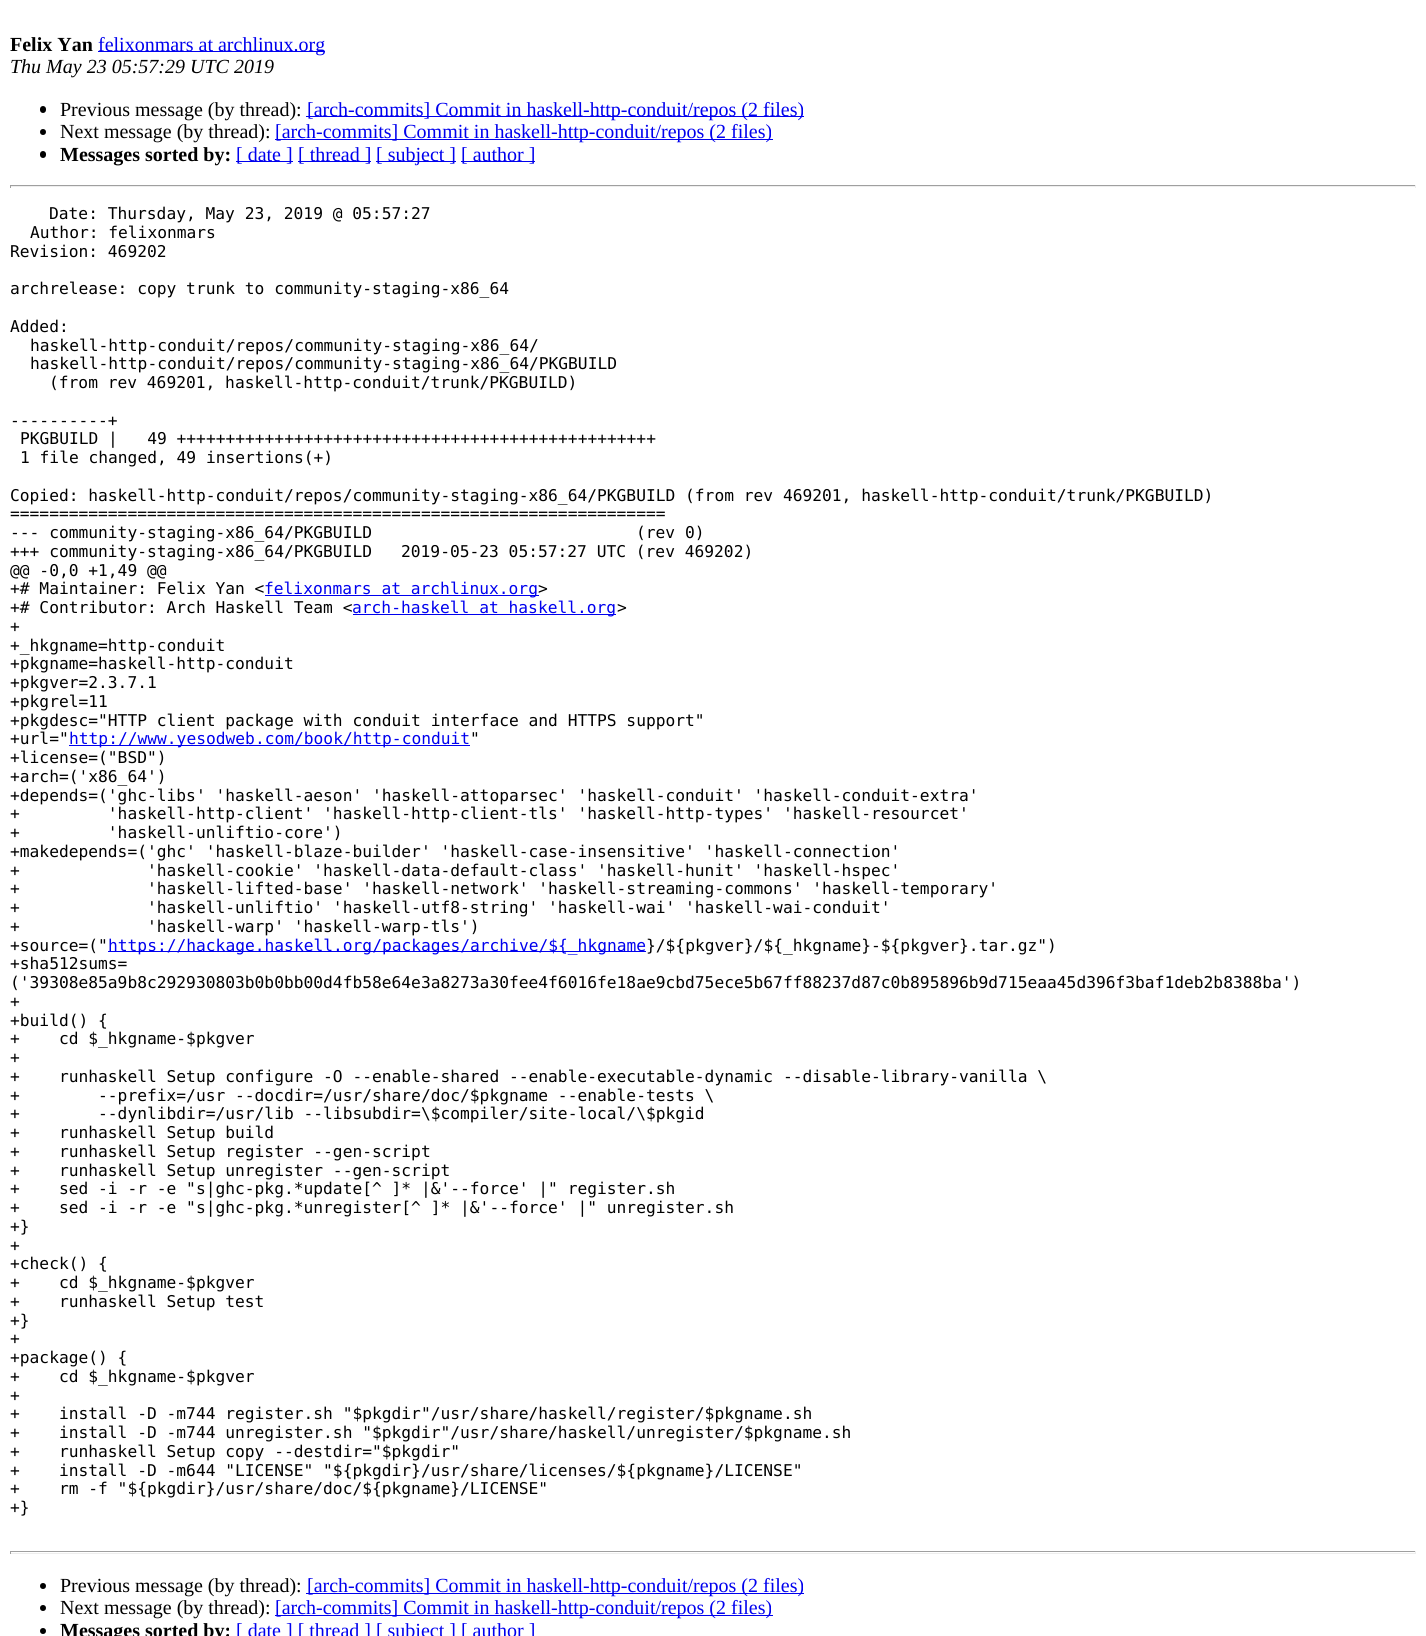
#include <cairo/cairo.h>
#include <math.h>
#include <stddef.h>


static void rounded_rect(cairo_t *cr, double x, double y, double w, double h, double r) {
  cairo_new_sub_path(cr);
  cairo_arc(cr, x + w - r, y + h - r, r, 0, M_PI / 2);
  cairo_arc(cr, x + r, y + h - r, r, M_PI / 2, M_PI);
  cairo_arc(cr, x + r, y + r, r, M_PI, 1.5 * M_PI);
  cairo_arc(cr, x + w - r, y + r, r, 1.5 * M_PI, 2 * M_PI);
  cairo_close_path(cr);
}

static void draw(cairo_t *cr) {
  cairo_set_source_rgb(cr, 1, 1, 1);
  cairo_paint(cr);
  cairo_set_source_rgb(cr, 0, 0, 238 / 255.0);
  cairo_rectangle(cr, 98, 51, 227, 1);
  cairo_fill(cr);
  cairo_set_source_rgb(cr, 0, 0, 0);
  rounded_rect(cr, 40, 106, 6, 7, 3);
  cairo_fill(cr);
  cairo_set_source_rgb(cr, 0, 0, 238 / 255.0);
  cairo_rectangle(cr, 306, 116, 498, 1);
  cairo_fill(cr);
  cairo_set_source_rgb(cr, 0, 0, 0);
  cairo_arc(cr, 43, 132, 3, 0, 2 * M_PI);
  cairo_fill(cr);
  cairo_set_source_rgb(cr, 0, 0, 238 / 255.0);
  cairo_rectangle(cr, 275, 139, 498, 1);
  cairo_fill(cr);
  cairo_set_source_rgb(cr, 0, 0, 0);
  rounded_rect(cr, 40, 151, 6, 7, 3);
  cairo_fill(cr);
  cairo_set_source_rgb(cr, 0, 0, 238 / 255.0);
  cairo_rectangle(cr, 236, 161, 57, 1);
  cairo_fill(cr);
  cairo_rectangle(cr, 298, 161, 73, 1);
  cairo_fill(cr);
  cairo_rectangle(cr, 376, 161, 80, 1);
  cairo_fill(cr);
  cairo_rectangle(cr, 461, 161, 74, 1);
  cairo_fill(cr);
  cairo_set_source_rgb(cr, 159 / 255.0, 159 / 255.0, 159 / 255.0);
  cairo_rectangle(cr, 10, 185, 1406, 1);
  cairo_fill(cr);
  cairo_set_source_rgb(cr, 238 / 255.0, 238 / 255.0, 238 / 255.0);
  cairo_rectangle(cr, 1415, 185, 1, 3);
  cairo_fill(cr);
  cairo_rectangle(cr, 10, 186, 1406, 1);
  cairo_fill(cr);
  cairo_set_source_rgb(cr, 159 / 255.0, 159 / 255.0, 159 / 255.0);
  cairo_rectangle(cr, 10, 185, 1, 3);
  cairo_fill(cr);
  cairo_set_source_rgb(cr, 0, 0, 238 / 255.0);
  cairo_rectangle(cr, 265, 595, 274, 1);
  cairo_fill(cr);
  cairo_rectangle(cr, 353, 614, 263, 1);
  cairo_fill(cr);
  cairo_rectangle(cr, 69, 745, 401, 1);
  cairo_fill(cr);
  cairo_rectangle(cr, 108, 951, 538, 1);
  cairo_fill(cr);
  cairo_set_source_rgb(cr, 159 / 255.0, 159 / 255.0, 159 / 255.0);
  cairo_rectangle(cr, 10, 1551, 1406, 1);
  cairo_fill(cr);
  cairo_set_source_rgb(cr, 238 / 255.0, 238 / 255.0, 238 / 255.0);
  cairo_rectangle(cr, 1415, 1551, 1, 3);
  cairo_fill(cr);
  cairo_rectangle(cr, 10, 1553, 1406, 1);
  cairo_fill(cr);
  cairo_set_source_rgb(cr, 159 / 255.0, 159 / 255.0, 159 / 255.0);
  cairo_rectangle(cr, 10, 1551, 1, 3);
  cairo_fill(cr);
  cairo_set_source_rgb(cr, 0, 0, 0);
  cairo_arc(cr, 43, 1586, 3, 0, 2 * M_PI);
  cairo_fill(cr);
  cairo_set_source_rgb(cr, 0, 0, 238 / 255.0);
  cairo_rectangle(cr, 306, 1593, 498, 1);
  cairo_fill(cr);
  cairo_set_source_rgb(cr, 0, 0, 0);
  cairo_arc(cr, 43, 1608, 3, 0, 2 * M_PI);
  cairo_fill(cr);
  cairo_set_source_rgb(cr, 0, 0, 238 / 255.0);
  cairo_rectangle(cr, 275, 1615, 498, 1);
  cairo_fill(cr);
  cairo_set_source_rgb(cr, 0, 0, 0);
  cairo_arc(cr, 43, 1631, 3, 0, 2 * M_PI);
  cairo_fill(cr);
  cairo_select_font_face(cr, "Liberation Serif", CAIRO_FONT_SLANT_NORMAL, CAIRO_FONT_WEIGHT_BOLD);
  cairo_set_font_size(cr, 20);
  cairo_move_to(cr, 10, 51);
  cairo_show_text(cr, "Felix Yan");
  cairo_select_font_face(cr, "Liberation Serif", CAIRO_FONT_SLANT_NORMAL, CAIRO_FONT_WEIGHT_NORMAL);
  cairo_set_source_rgb(cr, 0, 0, 238 / 255.0);
  cairo_move_to(cr, 98, 51);
  cairo_show_text(cr, "felixonmars at archlinux.org");
  cairo_select_font_face(cr, "Liberation Serif", CAIRO_FONT_SLANT_ITALIC, CAIRO_FONT_WEIGHT_NORMAL);
  cairo_set_source_rgb(cr, 0, 0, 0);
  cairo_move_to(cr, 10, 73);
  cairo_show_text(cr, "Thu May 23 05:57:29 UTC 2019");
  cairo_select_font_face(cr, "Liberation Serif", CAIRO_FONT_SLANT_NORMAL, CAIRO_FONT_WEIGHT_NORMAL);
  cairo_move_to(cr, 60, 116);
  cairo_show_text(cr, "Previous message (by thread):");
  cairo_set_source_rgb(cr, 0, 0, 238 / 255.0);
  cairo_move_to(cr, 307, 116);
  cairo_show_text(cr, "[arch-commits] Commit in haskell-http-conduit/repos (2 files)");
  cairo_set_source_rgb(cr, 0, 0, 0);
  cairo_move_to(cr, 60, 138);
  cairo_show_text(cr, "Next message (by thread):");
  cairo_set_source_rgb(cr, 0, 0, 238 / 255.0);
  cairo_move_to(cr, 275, 138);
  cairo_show_text(cr, "[arch-commits] Commit in haskell-http-conduit/repos (2 files)");
  cairo_select_font_face(cr, "Liberation Serif", CAIRO_FONT_SLANT_NORMAL, CAIRO_FONT_WEIGHT_BOLD);
  cairo_set_source_rgb(cr, 0, 0, 0);
  cairo_move_to(cr, 60, 161);
  cairo_show_text(cr, "Messages sorted by:");
  cairo_select_font_face(cr, "Liberation Serif", CAIRO_FONT_SLANT_NORMAL, CAIRO_FONT_WEIGHT_NORMAL);
  cairo_set_source_rgb(cr, 0, 0, 238 / 255.0);
  cairo_move_to(cr, 236, 161);
  cairo_show_text(cr, "[ date ]");
  cairo_move_to(cr, 298, 161);
  cairo_show_text(cr, "[ thread ]");
  cairo_move_to(cr, 376, 161);
  cairo_show_text(cr, "[ subject ]");
  cairo_move_to(cr, 461, 161);
  cairo_show_text(cr, "[ author ]");
  cairo_select_font_face(cr, "DejaVu Sans Mono", CAIRO_FONT_SLANT_NORMAL, CAIRO_FONT_WEIGHT_NORMAL);
  cairo_set_font_size(cr, 16.25);
  cairo_set_source_rgb(cr, 0, 0, 0);
  cairo_move_to(cr, 49, 219);
  cairo_show_text(cr, "Date: Thursday, May 23, 2019 @ 05:57:27");
  cairo_move_to(cr, 30, 238);
  cairo_show_text(cr, "Author: felixonmars");
  cairo_move_to(cr, 10, 257);
  cairo_show_text(cr, "Revision: 469202");
  cairo_move_to(cr, 10, 294);
  cairo_show_text(cr, "archrelease: copy trunk to community-staging-x86_64");
  cairo_move_to(cr, 10, 332);
  cairo_show_text(cr, "Added:");
  cairo_move_to(cr, 30, 351);
  cairo_show_text(cr, "haskell-http-conduit/repos/community-staging-x86_64/");
  cairo_move_to(cr, 30, 369);
  cairo_show_text(cr, "haskell-http-conduit/repos/community-staging-x86_64/PKGBUILD");
  cairo_move_to(cr, 49, 388);
  cairo_show_text(cr, "(from rev 469201, haskell-http-conduit/trunk/PKGBUILD)");
  cairo_move_to(cr, 10, 426);
  cairo_show_text(cr, "----------+");
  cairo_move_to(cr, 20, 444);
  cairo_show_text(cr, "PKGBUILD |   49 +++++++++++++++++++++++++++++++++++++++++++++++++");
  cairo_move_to(cr, 20, 463);
  cairo_show_text(cr, "1 file changed, 49 insertions(+)");
  cairo_move_to(cr, 10, 501);
  cairo_show_text(cr, "Copied: haskell-http-conduit/repos/community-staging-x86_64/PKGBUILD (from rev 469201, haskell-http-conduit/trunk/PKGBUILD)");
  cairo_move_to(cr, 10, 519);
  cairo_show_text(cr, "===================================================================");
  cairo_move_to(cr, 10, 538);
  cairo_show_text(cr, "--- community-staging-x86_64/PKGBUILD");
  cairo_move_to(cr, 636, 538);
  cairo_show_text(cr, "(rev 0)");
  cairo_move_to(cr, 10, 557);
  cairo_show_text(cr, "+++ community-staging-x86_64/PKGBUILD");
  cairo_move_to(cr, 401, 557);
  cairo_show_text(cr, "2019-05-23 05:57:27 UTC (rev 469202)");
  cairo_move_to(cr, 10, 576);
  cairo_show_text(cr, "@@ -0,0 +1,49 @@");
  cairo_move_to(cr, 10, 594);
  cairo_show_text(cr, "+# Maintainer: Felix Yan <");
  cairo_set_source_rgb(cr, 0, 0, 238 / 255.0);
  cairo_move_to(cr, 264, 594);
  cairo_show_text(cr, "felixonmars at archlinux.org");
  cairo_set_source_rgb(cr, 0, 0, 0);
  cairo_move_to(cr, 538, 594);
  cairo_show_text(cr, ">");
  cairo_move_to(cr, 10, 613);
  cairo_show_text(cr, "+# Contributor: Arch Haskell Team <");
  cairo_set_source_rgb(cr, 0, 0, 238 / 255.0);
  cairo_move_to(cr, 352, 613);
  cairo_show_text(cr, "arch-haskell at haskell.org");
  cairo_set_source_rgb(cr, 0, 0, 0);
  cairo_move_to(cr, 617, 613);
  cairo_show_text(cr, ">");
  cairo_move_to(cr, 10, 632);
  cairo_show_text(cr, "+");
  cairo_move_to(cr, 10, 651);
  cairo_show_text(cr, "+_hkgname=http-conduit");
  cairo_move_to(cr, 10, 669);
  cairo_show_text(cr, "+pkgname=haskell-http-conduit");
  cairo_move_to(cr, 10, 688);
  cairo_show_text(cr, "+pkgver=2.3.7.1");
  cairo_move_to(cr, 10, 707);
  cairo_show_text(cr, "+pkgrel=11");
  cairo_move_to(cr, 10, 726);
  cairo_show_text(cr, "+pkgdesc=\"HTTP client package with conduit interface and HTTPS support\"");
  cairo_move_to(cr, 10, 744);
  cairo_show_text(cr, "+url=\"");
  cairo_set_source_rgb(cr, 0, 0, 238 / 255.0);
  cairo_move_to(cr, 69, 744);
  cairo_show_text(cr, "http://www.yesodweb.com/book/http-conduit");
  cairo_set_source_rgb(cr, 0, 0, 0);
  cairo_move_to(cr, 470, 744);
  cairo_show_text(cr, "\"");
  cairo_move_to(cr, 10, 763);
  cairo_show_text(cr, "+license=(\"BSD\")");
  cairo_move_to(cr, 10, 782);
  cairo_show_text(cr, "+arch=('x86_64')");
  cairo_move_to(cr, 10, 801);
  cairo_show_text(cr, "+depends=('ghc-libs' 'haskell-aeson' 'haskell-attoparsec' 'haskell-conduit' 'haskell-conduit-extra'");
  cairo_move_to(cr, 10, 819);
  cairo_show_text(cr, "+         'haskell-http-client' 'haskell-http-client-tls' 'haskell-http-types' 'haskell-resourcet'");
  cairo_move_to(cr, 10, 838);
  cairo_show_text(cr, "+         'haskell-unliftio-core')");
  cairo_move_to(cr, 10, 857);
  cairo_show_text(cr, "+makedepends=('ghc' 'haskell-blaze-builder' 'haskell-case-insensitive' 'haskell-connection'");
  cairo_move_to(cr, 10, 876);
  cairo_show_text(cr, "+             'haskell-cookie' 'haskell-data-default-class' 'haskell-hunit' 'haskell-hspec'");
  cairo_move_to(cr, 10, 894);
  cairo_show_text(cr, "+             'haskell-lifted-base' 'haskell-network' 'haskell-streaming-commons' 'haskell-temporary'");
  cairo_move_to(cr, 10, 913);
  cairo_show_text(cr, "+             'haskell-unliftio' 'haskell-utf8-string' 'haskell-wai' 'haskell-wai-conduit'");
  cairo_move_to(cr, 10, 932);
  cairo_show_text(cr, "+             'haskell-warp' 'haskell-warp-tls')");
  cairo_move_to(cr, 10, 951);
  cairo_show_text(cr, "+source=(\"");
  cairo_set_source_rgb(cr, 0, 0, 238 / 255.0);
  cairo_move_to(cr, 108, 951);
  cairo_show_text(cr, "https://hackage.haskell.org/packages/archive/${_hkgname");
  cairo_set_source_rgb(cr, 0, 0, 0);
  cairo_move_to(cr, 646, 951);
  cairo_show_text(cr, "}/${pkgver}/${_hkgname}-${pkgver}.tar.gz\")");
  cairo_move_to(cr, 10, 969);
  cairo_show_text(cr, "+sha512sums=");
  cairo_move_to(cr, 10, 988);
  cairo_show_text(cr, "('39308e85a9b8c292930803b0b0bb00d4fb58e64e3a8273a30fee4f6016fe18ae9cbd75ece5b67ff88237d87c0b895896b9d715eaa45d396f3baf1deb2b8388ba')");
  cairo_move_to(cr, 10, 1007);
  cairo_show_text(cr, "+");
  cairo_move_to(cr, 10, 1026);
  cairo_show_text(cr, "+build() {");
  cairo_move_to(cr, 10, 1044);
  cairo_show_text(cr, "+    cd $_hkgname-$pkgver");
  cairo_move_to(cr, 10, 1063);
  cairo_show_text(cr, "+");
  cairo_move_to(cr, 10, 1082);
  cairo_show_text(cr, "+    runhaskell Setup configure -O --enable-shared --enable-executable-dynamic --disable-library-vanilla \\");
  cairo_move_to(cr, 10, 1101);
  cairo_show_text(cr, "+        --prefix=/usr --docdir=/usr/share/doc/$pkgname --enable-tests \\");
  cairo_move_to(cr, 10, 1119);
  cairo_show_text(cr, "+        --dynlibdir=/usr/lib --libsubdir=\\$compiler/site-local/\\$pkgid");
  cairo_move_to(cr, 10, 1138);
  cairo_show_text(cr, "+    runhaskell Setup build");
  cairo_move_to(cr, 10, 1157);
  cairo_show_text(cr, "+    runhaskell Setup register --gen-script");
  cairo_move_to(cr, 10, 1176);
  cairo_show_text(cr, "+    runhaskell Setup unregister --gen-script");
  cairo_move_to(cr, 10, 1194);
  cairo_show_text(cr, "+    sed -i -r -e \"s|ghc-pkg.*update[^ ]* |&'--force' |\" register.sh");
  cairo_move_to(cr, 10, 1213);
  cairo_show_text(cr, "+    sed -i -r -e \"s|ghc-pkg.*unregister[^ ]* |&'--force' |\" unregister.sh");
  cairo_move_to(cr, 10, 1232);
  cairo_show_text(cr, "+}");
  cairo_move_to(cr, 10, 1251);
  cairo_show_text(cr, "+");
  cairo_move_to(cr, 10, 1269);
  cairo_show_text(cr, "+check() {");
  cairo_move_to(cr, 10, 1288);
  cairo_show_text(cr, "+    cd $_hkgname-$pkgver");
  cairo_move_to(cr, 10, 1307);
  cairo_show_text(cr, "+    runhaskell Setup test");
  cairo_move_to(cr, 10, 1326);
  cairo_show_text(cr, "+}");
  cairo_move_to(cr, 10, 1344);
  cairo_show_text(cr, "+");
  cairo_move_to(cr, 10, 1363);
  cairo_show_text(cr, "+package() {");
  cairo_move_to(cr, 10, 1382);
  cairo_show_text(cr, "+    cd $_hkgname-$pkgver");
  cairo_move_to(cr, 10, 1401);
  cairo_show_text(cr, "+");
  cairo_move_to(cr, 10, 1419);
  cairo_show_text(cr, "+    install -D -m744 register.sh \"$pkgdir\"/usr/share/haskell/register/$pkgname.sh");
  cairo_move_to(cr, 10, 1438);
  cairo_show_text(cr, "+    install -D -m744 unregister.sh \"$pkgdir\"/usr/share/haskell/unregister/$pkgname.sh");
  cairo_move_to(cr, 10, 1457);
  cairo_show_text(cr, "+    runhaskell Setup copy --destdir=\"$pkgdir\"");
  cairo_move_to(cr, 10, 1476);
  cairo_show_text(cr, "+    install -D -m644 \"LICENSE\" \"${pkgdir}/usr/share/licenses/${pkgname}/LICENSE\"");
  cairo_move_to(cr, 10, 1494);
  cairo_show_text(cr, "+    rm -f \"${pkgdir}/usr/share/doc/${pkgname}/LICENSE\"");
  cairo_move_to(cr, 10, 1513);
  cairo_show_text(cr, "+}");
  cairo_select_font_face(cr, "Liberation Serif", CAIRO_FONT_SLANT_NORMAL, CAIRO_FONT_WEIGHT_NORMAL);
  cairo_set_font_size(cr, 20);
  cairo_move_to(cr, 60, 1592);
  cairo_show_text(cr, "Previous message (by thread):");
  cairo_set_source_rgb(cr, 0, 0, 238 / 255.0);
  cairo_move_to(cr, 307, 1592);
  cairo_show_text(cr, "[arch-commits] Commit in haskell-http-conduit/repos (2 files)");
  cairo_set_source_rgb(cr, 0, 0, 0);
  cairo_move_to(cr, 60, 1614);
  cairo_show_text(cr, "Next message (by thread):");
  cairo_set_source_rgb(cr, 0, 0, 238 / 255.0);
  cairo_move_to(cr, 275, 1614);
  cairo_show_text(cr, "[arch-commits] Commit in haskell-http-conduit/repos (2 files)");
  cairo_select_font_face(cr, "Liberation Serif", CAIRO_FONT_SLANT_NORMAL, CAIRO_FONT_WEIGHT_BOLD);
  cairo_set_source_rgb(cr, 0, 0, 0);
  cairo_move_to(cr, 60, 1637);
  cairo_show_text(cr, "Messages sorted by:");
  cairo_select_font_face(cr, "Liberation Serif", CAIRO_FONT_SLANT_NORMAL, CAIRO_FONT_WEIGHT_NORMAL);
  cairo_set_source_rgb(cr, 0, 0, 238 / 255.0);
  cairo_move_to(cr, 236, 1637);
  cairo_show_text(cr, "[ date ] [ thread ] [ subject ] [ author ]");
}

int main(void) {
  cairo_surface_t *surface = cairo_image_surface_create(CAIRO_FORMAT_RGB24, 1426, 1636);
  cairo_t *cr = cairo_create(surface);
  cairo_font_options_t *options = cairo_font_options_create();
  cairo_font_options_set_hint_metrics(options, CAIRO_HINT_METRICS_OFF);
  cairo_font_options_set_hint_style(options, CAIRO_HINT_STYLE_NONE);
  cairo_set_font_options(cr, options);
  cairo_set_miter_limit(cr, 4);
  draw(cr);
  cairo_surface_write_to_png(surface, "out.png");
  cairo_font_options_destroy(options);
  cairo_destroy(cr);
  cairo_surface_destroy(surface);
  return 0;
}
